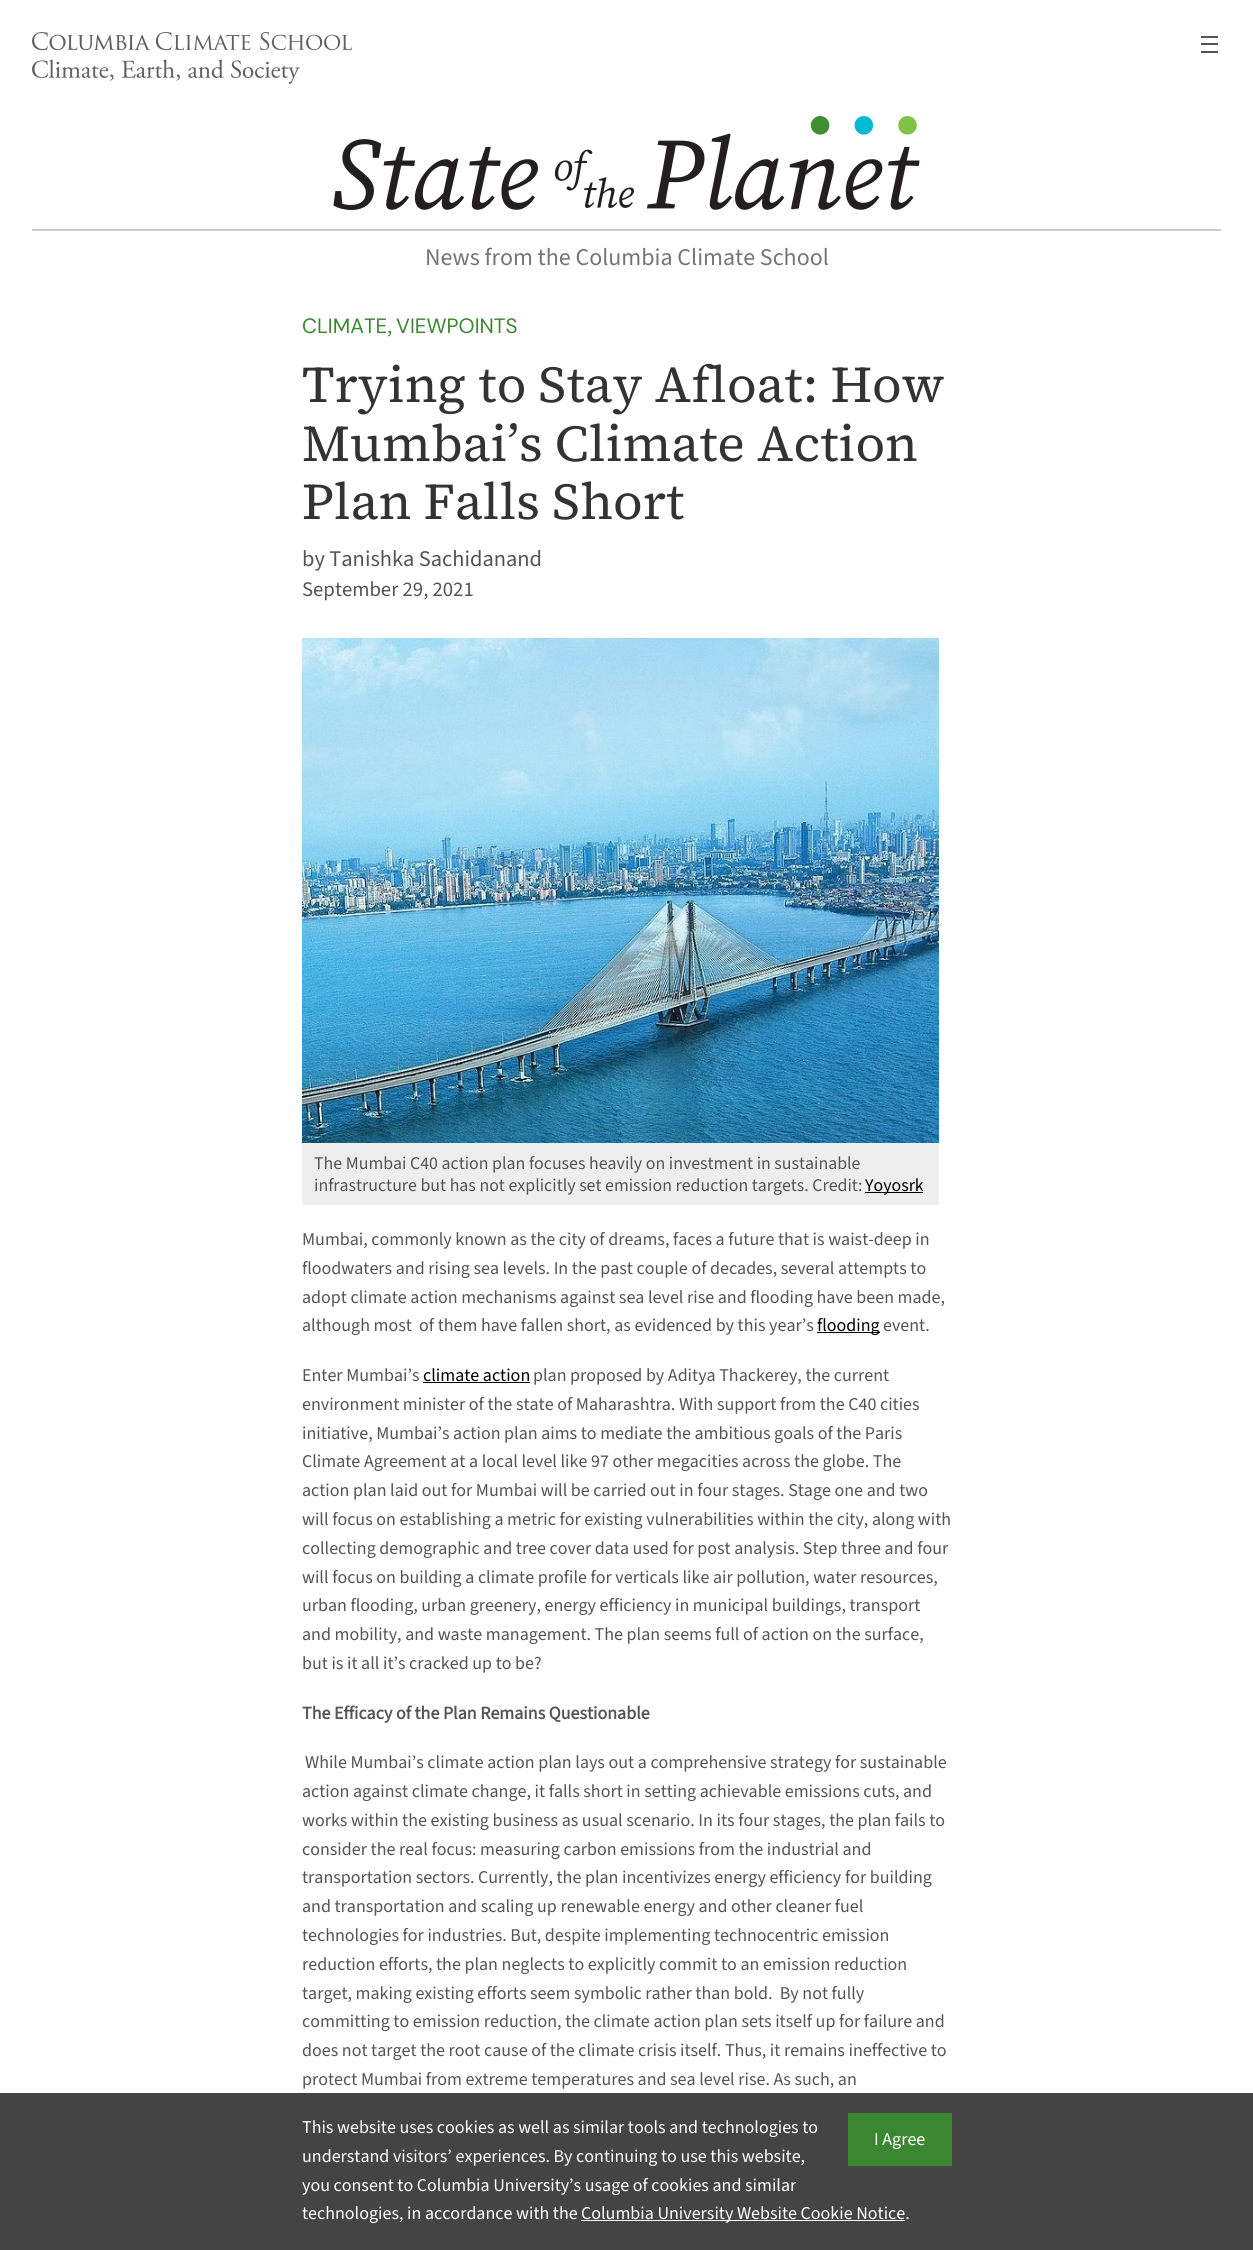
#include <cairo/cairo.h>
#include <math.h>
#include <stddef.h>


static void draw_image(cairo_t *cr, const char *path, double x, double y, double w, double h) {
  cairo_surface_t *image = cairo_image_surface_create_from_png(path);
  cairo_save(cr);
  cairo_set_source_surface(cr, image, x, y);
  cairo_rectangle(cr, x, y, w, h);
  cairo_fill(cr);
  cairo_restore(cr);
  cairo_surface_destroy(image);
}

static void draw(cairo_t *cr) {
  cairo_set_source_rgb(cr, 1, 1, 1);
  cairo_paint(cr);
  draw_image(cr, "images/1.png", 32, 32, 320, 52);
  cairo_set_source_rgb(cr, 84 / 255.0, 84 / 255.0, 84 / 255.0);
  cairo_rectangle(cr, 1201, 36, 17, 2);
  cairo_fill(cr);
  cairo_rectangle(cr, 1201, 43, 17, 2);
  cairo_fill(cr);
  cairo_rectangle(cr, 1201, 51, 17, 2);
  cairo_fill(cr);
  draw_image(cr, "images/2.png", 333, 116, 587, 94);
  cairo_set_source_rgb(cr, 204 / 255.0, 204 / 255.0, 204 / 255.0);
  cairo_rectangle(cr, 32, 229, 1189, 2);
  cairo_fill(cr);
  cairo_set_source_rgb(cr, 238 / 255.0, 238 / 255.0, 238 / 255.0);
  cairo_rectangle(cr, 302, 1143, 637, 62);
  cairo_fill(cr);
  draw_image(cr, "images/3.png", 302, 638, 637, 505);
  cairo_set_source_rgb(cr, 0, 0, 0);
  cairo_rectangle(cr, 865, 1192, 58, 1);
  cairo_fill(cr);
  cairo_rectangle(cr, 817, 1332, 63, 1);
  cairo_fill(cr);
  cairo_rectangle(cr, 423, 1382, 107, 1);
  cairo_fill(cr);
  cairo_set_source_rgb(cr, 68 / 255.0, 68 / 255.0, 68 / 255.0);
  cairo_rectangle(cr, 0, 2093, 1253, 157);
  cairo_fill(cr);
  cairo_set_source_rgb(cr, 59 / 255.0, 134 / 255.0, 49 / 255.0);
  cairo_rectangle(cr, 848, 2113, 104, 53);
  cairo_fill(cr);
  cairo_set_source_rgb(cr, 1, 1, 1);
  cairo_rectangle(cr, 581, 2220, 324, 1);
  cairo_fill(cr);
  cairo_select_font_face(cr, "Source Sans 3", CAIRO_FONT_SLANT_NORMAL, CAIRO_FONT_WEIGHT_NORMAL);
  cairo_set_font_size(cr, 24);
  cairo_set_source_rgb(cr, 117 / 255.0, 117 / 255.0, 117 / 255.0);
  cairo_move_to(cr, 425, 265);
  cairo_show_text(cr, "News from the Columbia Climate School");
  cairo_select_font_face(cr, "DM Sans", CAIRO_FONT_SLANT_NORMAL, CAIRO_FONT_WEIGHT_NORMAL);
  cairo_set_font_size(cr, 20.75);
  cairo_set_source_rgb(cr, 59 / 255.0, 134 / 255.0, 49 / 255.0);
  cairo_move_to(cr, 302, 333);
  cairo_show_text(cr, "CLIMATE");
  cairo_select_font_face(cr, "Source Sans 3", CAIRO_FONT_SLANT_NORMAL, CAIRO_FONT_WEIGHT_NORMAL);
  cairo_move_to(cr, 387, 333);
  cairo_show_text(cr, ",");
  cairo_select_font_face(cr, "DM Sans", CAIRO_FONT_SLANT_NORMAL, CAIRO_FONT_WEIGHT_NORMAL);
  cairo_move_to(cr, 396, 333);
  cairo_show_text(cr, "VIEWPOINTS");
  cairo_select_font_face(cr, "Source Serif 4", CAIRO_FONT_SLANT_NORMAL, CAIRO_FONT_WEIGHT_NORMAL);
  cairo_set_font_size(cr, 51.25);
  cairo_set_source_rgb(cr, 51 / 255.0, 51 / 255.0, 51 / 255.0);
  cairo_move_to(cr, 302, 402);
  cairo_show_text(cr, "Trying to Stay Afloat: How");
  cairo_move_to(cr, 302, 461);
  cairo_show_text(cr, "Mumbai’s Climate Action");
  cairo_move_to(cr, 302, 519);
  cairo_show_text(cr, "Plan Falls Short");
  cairo_select_font_face(cr, "Source Sans 3", CAIRO_FONT_SLANT_NORMAL, CAIRO_FONT_WEIGHT_NORMAL);
  cairo_set_font_size(cr, 22.4);
  cairo_set_source_rgb(cr, 84 / 255.0, 84 / 255.0, 84 / 255.0);
  cairo_move_to(cr, 302, 566);
  cairo_show_text(cr, "by Tanishka Sachidanand");
  cairo_set_font_size(cr, 20.75);
  cairo_move_to(cr, 302, 596);
  cairo_show_text(cr, "September 29, 2021");
  cairo_set_font_size(cr, 17.85);
  cairo_move_to(cr, 314, 1169);
  cairo_show_text(cr, "The Mumbai C40 action plan focuses heavily on investment in sustainable");
  cairo_move_to(cr, 314, 1191);
  cairo_show_text(cr, "infrastructure but has not explicitly set emission reduction targets. Credit:");
  cairo_set_source_rgb(cr, 0, 0, 0);
  cairo_move_to(cr, 865, 1191);
  cairo_show_text(cr, "Yoyosrk");
  cairo_set_font_size(cr, 18);
  cairo_set_source_rgb(cr, 84 / 255.0, 84 / 255.0, 84 / 255.0);
  cairo_move_to(cr, 302, 1245);
  cairo_show_text(cr, "Mumbai, commonly known as the city of dreams, faces a future that is waist-deep in");
  cairo_move_to(cr, 302, 1274);
  cairo_show_text(cr, "floodwaters and rising sea levels. In the past couple of decades, several attempts to");
  cairo_move_to(cr, 302, 1303);
  cairo_show_text(cr, "adopt climate action mechanisms against sea level rise and flooding have been made,");
  cairo_move_to(cr, 302, 1331);
  cairo_show_text(cr, "although most  of them have fallen short, as evidenced by this year’s");
  cairo_set_source_rgb(cr, 0, 0, 0);
  cairo_move_to(cr, 817, 1331);
  cairo_show_text(cr, "flooding");
  cairo_set_source_rgb(cr, 84 / 255.0, 84 / 255.0, 84 / 255.0);
  cairo_move_to(cr, 883, 1331);
  cairo_show_text(cr, "event.");
  cairo_move_to(cr, 302, 1381);
  cairo_show_text(cr, "Enter Mumbai’s");
  cairo_set_source_rgb(cr, 0, 0, 0);
  cairo_move_to(cr, 423, 1381);
  cairo_show_text(cr, "climate action");
  cairo_set_source_rgb(cr, 84 / 255.0, 84 / 255.0, 84 / 255.0);
  cairo_move_to(cr, 533, 1381);
  cairo_show_text(cr, "plan proposed by Aditya Thackerey, the current");
  cairo_move_to(cr, 302, 1410);
  cairo_show_text(cr, "environment minister of the state of Maharashtra. With support from the C40 cities");
  cairo_move_to(cr, 302, 1439);
  cairo_show_text(cr, "initiative, Mumbai’s action plan aims to mediate the ambitious goals of the Paris");
  cairo_move_to(cr, 302, 1467);
  cairo_show_text(cr, "Climate Agreement at a local level like 97 other megacities across the globe. The");
  cairo_move_to(cr, 302, 1496);
  cairo_show_text(cr, "action plan laid out for Mumbai will be carried out in four stages. Stage one and two");
  cairo_move_to(cr, 302, 1525);
  cairo_show_text(cr, "will focus on establishing a metric for existing vulnerabilities within the city, along with");
  cairo_move_to(cr, 302, 1554);
  cairo_show_text(cr, "collecting demographic and tree cover data used for post analysis. Step three and four");
  cairo_move_to(cr, 302, 1583);
  cairo_show_text(cr, "will focus on building a climate profile for verticals like air pollution, water resources,");
  cairo_move_to(cr, 302, 1611);
  cairo_show_text(cr, "urban flooding, urban greenery, energy efficiency in municipal buildings, transport");
  cairo_move_to(cr, 302, 1640);
  cairo_show_text(cr, "and mobility, and waste management. The plan seems full of action on the surface,");
  cairo_move_to(cr, 302, 1669);
  cairo_show_text(cr, "but is it all it’s cracked up to be?");
  cairo_select_font_face(cr, "Source Sans 3", CAIRO_FONT_SLANT_NORMAL, CAIRO_FONT_WEIGHT_BOLD);
  cairo_move_to(cr, 302, 1719);
  cairo_show_text(cr, "The Efficacy of the Plan Remains Questionable");
  cairo_select_font_face(cr, "Source Sans 3", CAIRO_FONT_SLANT_NORMAL, CAIRO_FONT_WEIGHT_NORMAL);
  cairo_move_to(cr, 305, 1768);
  cairo_show_text(cr, "While Mumbai’s climate action plan lays out a comprehensive strategy for sustainable");
  cairo_move_to(cr, 302, 1797);
  cairo_show_text(cr, "action against climate change, it falls short in setting achievable emissions cuts, and");
  cairo_move_to(cr, 302, 1826);
  cairo_show_text(cr, "works within the existing business as usual scenario. In its four stages, the plan fails to");
  cairo_move_to(cr, 302, 1855);
  cairo_show_text(cr, "consider the real focus: measuring carbon emissions from the industrial and");
  cairo_move_to(cr, 302, 1883);
  cairo_show_text(cr, "transportation sectors. Currently, the plan incentivizes energy efficiency for building");
  cairo_move_to(cr, 302, 1912);
  cairo_show_text(cr, "and transportation and scaling up renewable energy and other cleaner fuel");
  cairo_move_to(cr, 302, 1941);
  cairo_show_text(cr, "technologies for industries. But, despite implementing technocentric emission");
  cairo_move_to(cr, 302, 1970);
  cairo_show_text(cr, "reduction efforts, the plan neglects to explicitly commit to an emission reduction");
  cairo_move_to(cr, 302, 1999);
  cairo_show_text(cr, "target, making existing efforts seem symbolic rather than bold.  By not fully");
  cairo_move_to(cr, 302, 2027);
  cairo_show_text(cr, "committing to emission reduction, the climate action plan sets itself up for failure and");
  cairo_move_to(cr, 302, 2056);
  cairo_show_text(cr, "does not target the root cause of the climate crisis itself. Thus, it remains ineffective to");
  cairo_move_to(cr, 302, 2085);
  cairo_show_text(cr, "protect Mumbai from extreme temperatures and sea level rise. As such, an");
  cairo_set_source_rgb(cr, 1, 1, 1);
  cairo_move_to(cr, 302, 2133);
  cairo_show_text(cr, "This website uses cookies as well as similar tools and technologies to");
  cairo_move_to(cr, 874, 2145);
  cairo_show_text(cr, "I Agree");
  cairo_move_to(cr, 302, 2162);
  cairo_show_text(cr, "understand visitors’ experiences. By continuing to use this website,");
  cairo_move_to(cr, 302, 2191);
  cairo_show_text(cr, "you consent to Columbia University’s usage of cookies and similar");
  cairo_move_to(cr, 302, 2219);
  cairo_show_text(cr, "technologies, in accordance with the");
  cairo_move_to(cr, 581, 2219);
  cairo_show_text(cr, "Columbia University Website Cookie Notice.");
}

int main(void) {
  cairo_surface_t *surface = cairo_image_surface_create(CAIRO_FORMAT_RGB24, 1253, 2250);
  cairo_t *cr = cairo_create(surface);
  cairo_font_options_t *options = cairo_font_options_create();
  cairo_font_options_set_hint_metrics(options, CAIRO_HINT_METRICS_OFF);
  cairo_font_options_set_hint_style(options, CAIRO_HINT_STYLE_NONE);
  cairo_set_font_options(cr, options);
  cairo_set_miter_limit(cr, 4);
  draw(cr);
  cairo_surface_write_to_png(surface, "out.png");
  cairo_font_options_destroy(options);
  cairo_destroy(cr);
  cairo_surface_destroy(surface);
  return 0;
}
